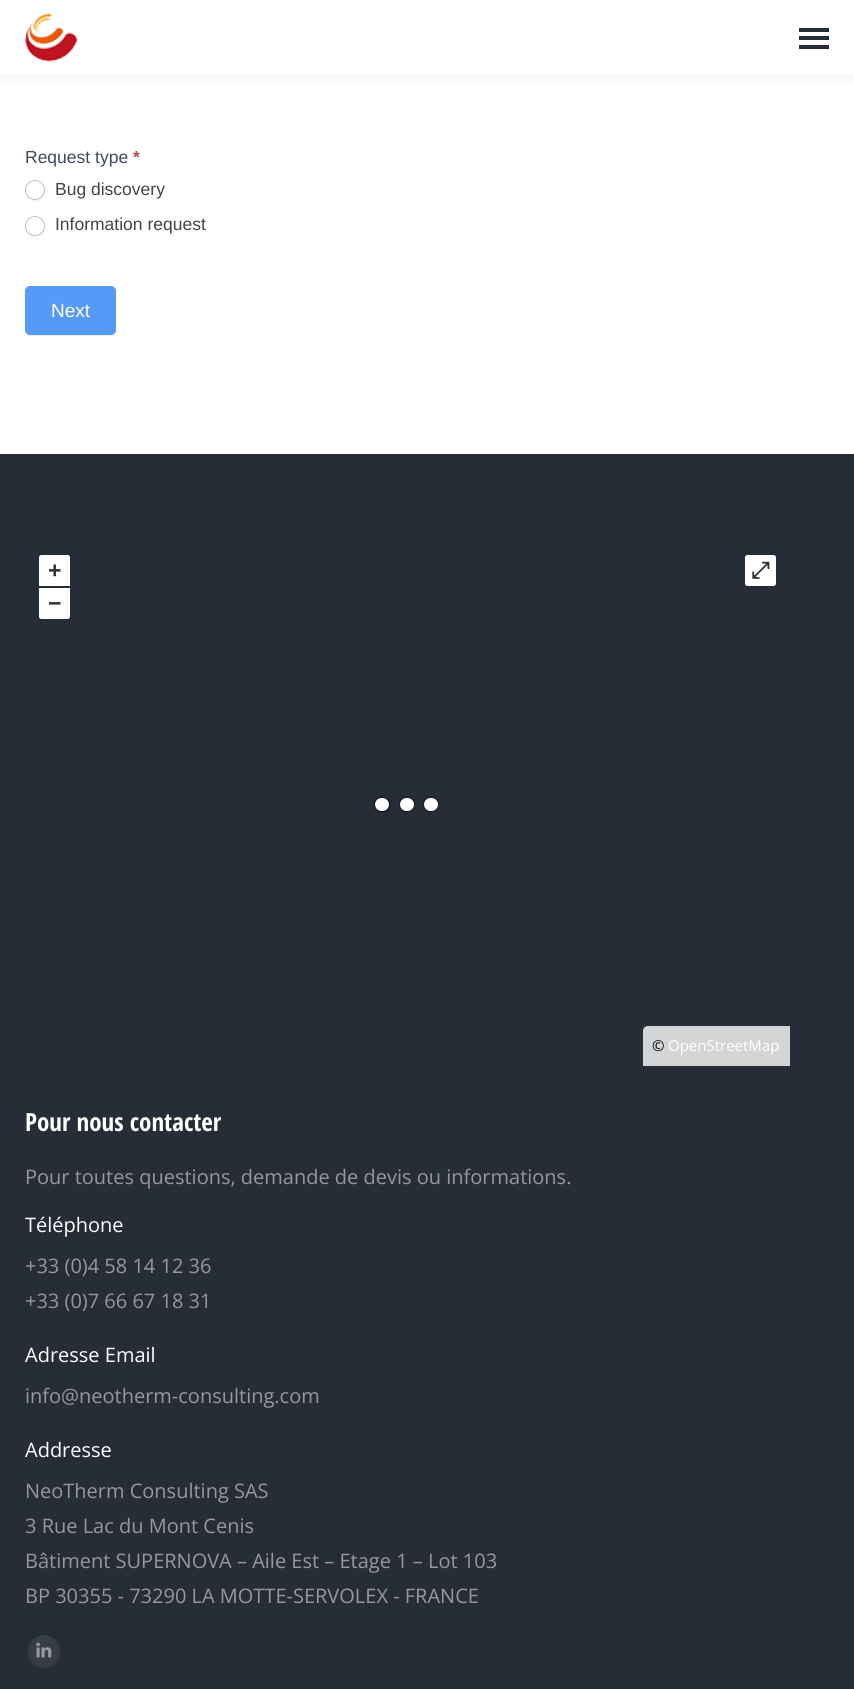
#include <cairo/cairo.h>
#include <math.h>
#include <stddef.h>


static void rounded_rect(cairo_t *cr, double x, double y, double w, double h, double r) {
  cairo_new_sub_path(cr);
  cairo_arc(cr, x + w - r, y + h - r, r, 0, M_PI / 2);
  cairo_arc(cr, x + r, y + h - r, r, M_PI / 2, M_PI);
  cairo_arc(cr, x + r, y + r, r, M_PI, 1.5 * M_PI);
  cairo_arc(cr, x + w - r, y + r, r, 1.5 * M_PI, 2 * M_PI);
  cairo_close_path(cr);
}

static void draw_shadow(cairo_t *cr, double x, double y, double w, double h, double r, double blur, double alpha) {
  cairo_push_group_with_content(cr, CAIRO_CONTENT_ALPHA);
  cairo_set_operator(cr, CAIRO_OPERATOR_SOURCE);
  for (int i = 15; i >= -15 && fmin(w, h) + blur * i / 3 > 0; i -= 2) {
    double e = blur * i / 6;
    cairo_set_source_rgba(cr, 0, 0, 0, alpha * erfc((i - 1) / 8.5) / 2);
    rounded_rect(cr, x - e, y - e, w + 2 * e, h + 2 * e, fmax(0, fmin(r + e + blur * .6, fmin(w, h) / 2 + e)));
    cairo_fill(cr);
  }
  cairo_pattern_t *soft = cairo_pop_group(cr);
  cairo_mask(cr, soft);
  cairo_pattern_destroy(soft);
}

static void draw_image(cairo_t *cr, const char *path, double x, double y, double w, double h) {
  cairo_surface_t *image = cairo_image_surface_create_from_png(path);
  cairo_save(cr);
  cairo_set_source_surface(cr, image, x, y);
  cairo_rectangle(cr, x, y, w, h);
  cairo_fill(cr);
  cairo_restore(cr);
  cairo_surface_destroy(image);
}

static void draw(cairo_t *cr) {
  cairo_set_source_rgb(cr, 1, 1, 1);
  cairo_paint(cr);
  cairo_set_source_rgb(cr, 0, 0, 0);
  draw_shadow(cr, -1, -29, 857, 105, 0, 9.5, 0.07);
  cairo_set_source_rgb(cr, 1, 1, 1);
  cairo_rectangle(cr, 0, 0, 854, 75);
  cairo_fill(cr);
  draw_image(cr, "images/1.png", 25, 13, 53, 49);
  cairo_set_source_rgb(cr, 38 / 255.0, 45 / 255.0, 55 / 255.0);
  cairo_rectangle(cr, 799, 28, 30, 4);
  cairo_fill(cr);
  cairo_rectangle(cr, 799, 36, 30, 4);
  cairo_fill(cr);
  cairo_rectangle(cr, 799, 45, 30, 4);
  cairo_fill(cr);
  cairo_set_source_rgb(cr, 18 / 255.0, 18 / 255.0, 23 / 255.0);
  draw_shadow(cr, 25, 181, 20, 20, 10, 1, 0.05);
  cairo_set_source_rgb(cr, 1, 1, 1);
  cairo_arc(cr, 35, 190, 9.5, 0, 2 * M_PI);
  cairo_fill_preserve(cr);
  cairo_set_source_rgb(cr, 191 / 255.0, 195 / 255.0, 200 / 255.0);
  cairo_set_line_width(cr, 1);
  cairo_stroke(cr);
  cairo_set_source_rgb(cr, 18 / 255.0, 18 / 255.0, 23 / 255.0);
  draw_shadow(cr, 25, 218, 20, 20, 10, 1, 0.05);
  cairo_set_source_rgb(cr, 1, 1, 1);
  cairo_arc(cr, 35, 226, 9.5, 0, 2 * M_PI);
  cairo_fill_preserve(cr);
  cairo_set_source_rgb(cr, 191 / 255.0, 195 / 255.0, 200 / 255.0);
  cairo_stroke(cr);
  cairo_set_source_rgb(cr, 238 / 255.0, 238 / 255.0, 238 / 255.0);
  draw_shadow(cr, 25, 288, 91, 48, 5, 0.5, 1);
  cairo_set_source_rgb(cr, 87 / 255.0, 154 / 255.0, 246 / 255.0);
  rounded_rect(cr, 25.5, 286.5, 90, 48, 4.5);
  cairo_fill_preserve(cr);
  cairo_stroke(cr);
  cairo_set_source_rgb(cr, 38 / 255.0, 45 / 255.0, 55 / 255.0);
  cairo_rectangle(cr, 0, 454, 854, 1235);
  cairo_fill(cr);
  cairo_set_source_rgb(cr, 1, 1, 1);
  cairo_new_path(cr);
  cairo_move_to(cr, 41.5, 555);
  cairo_line_to(cr, 67.5, 555);
  cairo_curve_to(cr, 69, 555, 70, 556, 70, 557.5);
  cairo_line_to(cr, 70, 586);
  cairo_line_to(cr, 39, 586);
  cairo_line_to(cr, 39, 557.5);
  cairo_curve_to(cr, 39, 556, 40, 555, 41.5, 555);
  cairo_close_path(cr);
  cairo_fill(cr);
  cairo_new_path(cr);
  cairo_move_to(cr, 39, 588);
  cairo_line_to(cr, 70, 588);
  cairo_line_to(cr, 70, 616.5);
  cairo_curve_to(cr, 70, 618, 69, 619, 67.5, 619);
  cairo_line_to(cr, 41.5, 619);
  cairo_curve_to(cr, 40, 619, 39, 618, 39, 616.5);
  cairo_close_path(cr);
  cairo_fill(cr);
  rounded_rect(cr, 745, 555, 31, 31, 2.5);
  cairo_fill(cr);
  cairo_set_source_rgb(cr, 212 / 255.0, 213 / 255.0, 215 / 255.0);
  cairo_new_path(cr);
  cairo_move_to(cr, 648, 1026);
  cairo_line_to(cr, 790, 1026);
  cairo_line_to(cr, 790, 1066);
  cairo_line_to(cr, 643, 1066);
  cairo_line_to(cr, 643, 1031);
  cairo_curve_to(cr, 643, 1028, 645, 1026, 648, 1026);
  cairo_close_path(cr);
  cairo_fill(cr);
  cairo_set_source_rgb(cr, 0, 0, 0);
  draw_shadow(cr, 375, 798, 14, 13, 6.5, 1, 1);
  draw_shadow(cr, 375, 798, 14, 13, 6.5, 1, 1);
  cairo_set_source_rgb(cr, 1, 1, 1);
  rounded_rect(cr, 375, 798, 14, 13, 6.5);
  cairo_fill(cr);
  cairo_set_source_rgb(cr, 0, 0, 0);
  draw_shadow(cr, 400, 798, 14, 13, 6.5, 1, 1);
  cairo_set_source_rgb(cr, 1, 1, 1);
  rounded_rect(cr, 400, 798, 14, 13, 6.5);
  cairo_fill(cr);
  cairo_set_source_rgb(cr, 0, 0, 0);
  draw_shadow(cr, 424, 798, 14, 13, 6.5, 1, 1);
  cairo_set_source_rgb(cr, 1, 1, 1);
  rounded_rect(cr, 424, 798, 14, 13, 6.5);
  cairo_fill(cr);
  cairo_set_source_rgb(cr, 55 / 255.0, 61 / 255.0, 70 / 255.0);
  rounded_rect(cr, 28, 1635, 32, 33, 16);
  cairo_fill(cr);
  draw_image(cr, "images/2.png", 36, 1642, 16, 16);
  cairo_select_font_face(cr, "Liberation Sans", CAIRO_FONT_SLANT_NORMAL, CAIRO_FONT_WEIGHT_NORMAL);
  cairo_set_font_size(cr, 17.5);
  cairo_set_source_rgb(cr, 63 / 255.0, 75 / 255.0, 91 / 255.0);
  cairo_move_to(cr, 25, 163);
  cairo_show_text(cr, "Request type");
  cairo_select_font_face(cr, "Liberation Sans", CAIRO_FONT_SLANT_NORMAL, CAIRO_FONT_WEIGHT_BOLD);
  cairo_set_source_rgb(cr, 185 / 255.0, 74 / 255.0, 72 / 255.0);
  cairo_move_to(cr, 133, 163);
  cairo_show_text(cr, "*");
  cairo_select_font_face(cr, "Liberation Sans", CAIRO_FONT_SLANT_NORMAL, CAIRO_FONT_WEIGHT_NORMAL);
  cairo_set_source_rgb(cr, 68 / 255.0, 68 / 255.0, 68 / 255.0);
  cairo_move_to(cr, 55, 195);
  cairo_show_text(cr, "Bug discovery");
  cairo_move_to(cr, 55, 230);
  cairo_show_text(cr, "Information request");
  cairo_set_font_size(cr, 19);
  cairo_set_source_rgb(cr, 1, 1, 1);
  cairo_move_to(cr, 51, 317);
  cairo_show_text(cr, "Next");
  cairo_select_font_face(cr, "Liberation Sans", CAIRO_FONT_SLANT_NORMAL, CAIRO_FONT_WEIGHT_BOLD);
  cairo_set_font_size(cr, 23);
  cairo_set_source_rgb(cr, 51 / 255.0, 51 / 255.0, 51 / 255.0);
  cairo_move_to(cr, 48, 578);
  cairo_show_text(cr, "+");
  cairo_move_to(cr, 48, 611);
  cairo_show_text(cr, "−");
  cairo_select_font_face(cr, "FreeSerif", CAIRO_FONT_SLANT_NORMAL, CAIRO_FONT_WEIGHT_BOLD);
  cairo_move_to(cr, 751, 578);
  cairo_show_text(cr, "⤢");
  cairo_select_font_face(cr, "Open Sans", CAIRO_FONT_SLANT_NORMAL, CAIRO_FONT_WEIGHT_NORMAL);
  cairo_set_font_size(cr, 15);
  cairo_set_source_rgb(cr, 0, 0, 0);
  cairo_move_to(cr, 652, 1051);
  cairo_show_text(cr, "©");
  cairo_set_source_rgb(cr, 1, 1, 1);
  cairo_move_to(cr, 668, 1051);
  cairo_show_text(cr, "OpenStreetMap");
  cairo_select_font_face(cr, "Open Sans Condensed", CAIRO_FONT_SLANT_NORMAL, CAIRO_FONT_WEIGHT_BOLD);
  cairo_set_font_size(cr, 25);
  cairo_move_to(cr, 25, 1131);
  cairo_show_text(cr, "Pour nous contacter");
  cairo_select_font_face(cr, "Open Sans", CAIRO_FONT_SLANT_NORMAL, CAIRO_FONT_WEIGHT_NORMAL);
  cairo_set_font_size(cr, 20);
  cairo_set_source_rgb(cr, 149 / 255.0, 152 / 255.0, 158 / 255.0);
  cairo_move_to(cr, 25, 1184);
  cairo_show_text(cr, "Pour toutes questions, demande de devis ou informations.");
  cairo_set_source_rgb(cr, 1, 1, 1);
  cairo_move_to(cr, 25, 1232);
  cairo_show_text(cr, "Téléphone");
  cairo_set_source_rgb(cr, 149 / 255.0, 152 / 255.0, 158 / 255.0);
  cairo_move_to(cr, 25, 1273);
  cairo_show_text(cr, "+33 (0)4 58 14 12 36");
  cairo_move_to(cr, 25, 1308);
  cairo_show_text(cr, "+33 (0)7 66 67 18 31");
  cairo_set_source_rgb(cr, 1, 1, 1);
  cairo_move_to(cr, 25, 1362);
  cairo_show_text(cr, "Adresse Email");
  cairo_set_source_rgb(cr, 149 / 255.0, 152 / 255.0, 158 / 255.0);
  cairo_move_to(cr, 25, 1403);
  cairo_show_text(cr, "info@neotherm-consulting.com");
  cairo_set_source_rgb(cr, 1, 1, 1);
  cairo_move_to(cr, 25, 1457);
  cairo_show_text(cr, "Addresse");
  cairo_set_source_rgb(cr, 149 / 255.0, 152 / 255.0, 158 / 255.0);
  cairo_move_to(cr, 25, 1498);
  cairo_show_text(cr, "NeoTherm Consulting SAS");
  cairo_move_to(cr, 25, 1533);
  cairo_show_text(cr, "3 Rue Lac du Mont Cenis");
  cairo_move_to(cr, 25, 1568);
  cairo_show_text(cr, "Bâtiment SUPERNOVA – Aile Est – Etage 1 – Lot 103");
  cairo_move_to(cr, 25, 1603);
  cairo_show_text(cr, "BP 30355 - 73290 LA MOTTE-SERVOLEX - FRANCE");
}

int main(void) {
  cairo_surface_t *surface = cairo_image_surface_create(CAIRO_FORMAT_RGB24, 854, 1689);
  cairo_t *cr = cairo_create(surface);
  cairo_font_options_t *options = cairo_font_options_create();
  cairo_font_options_set_hint_metrics(options, CAIRO_HINT_METRICS_OFF);
  cairo_font_options_set_hint_style(options, CAIRO_HINT_STYLE_NONE);
  cairo_set_font_options(cr, options);
  cairo_set_miter_limit(cr, 4);
  draw(cr);
  cairo_surface_write_to_png(surface, "out.png");
  cairo_font_options_destroy(options);
  cairo_destroy(cr);
  cairo_surface_destroy(surface);
  return 0;
}
